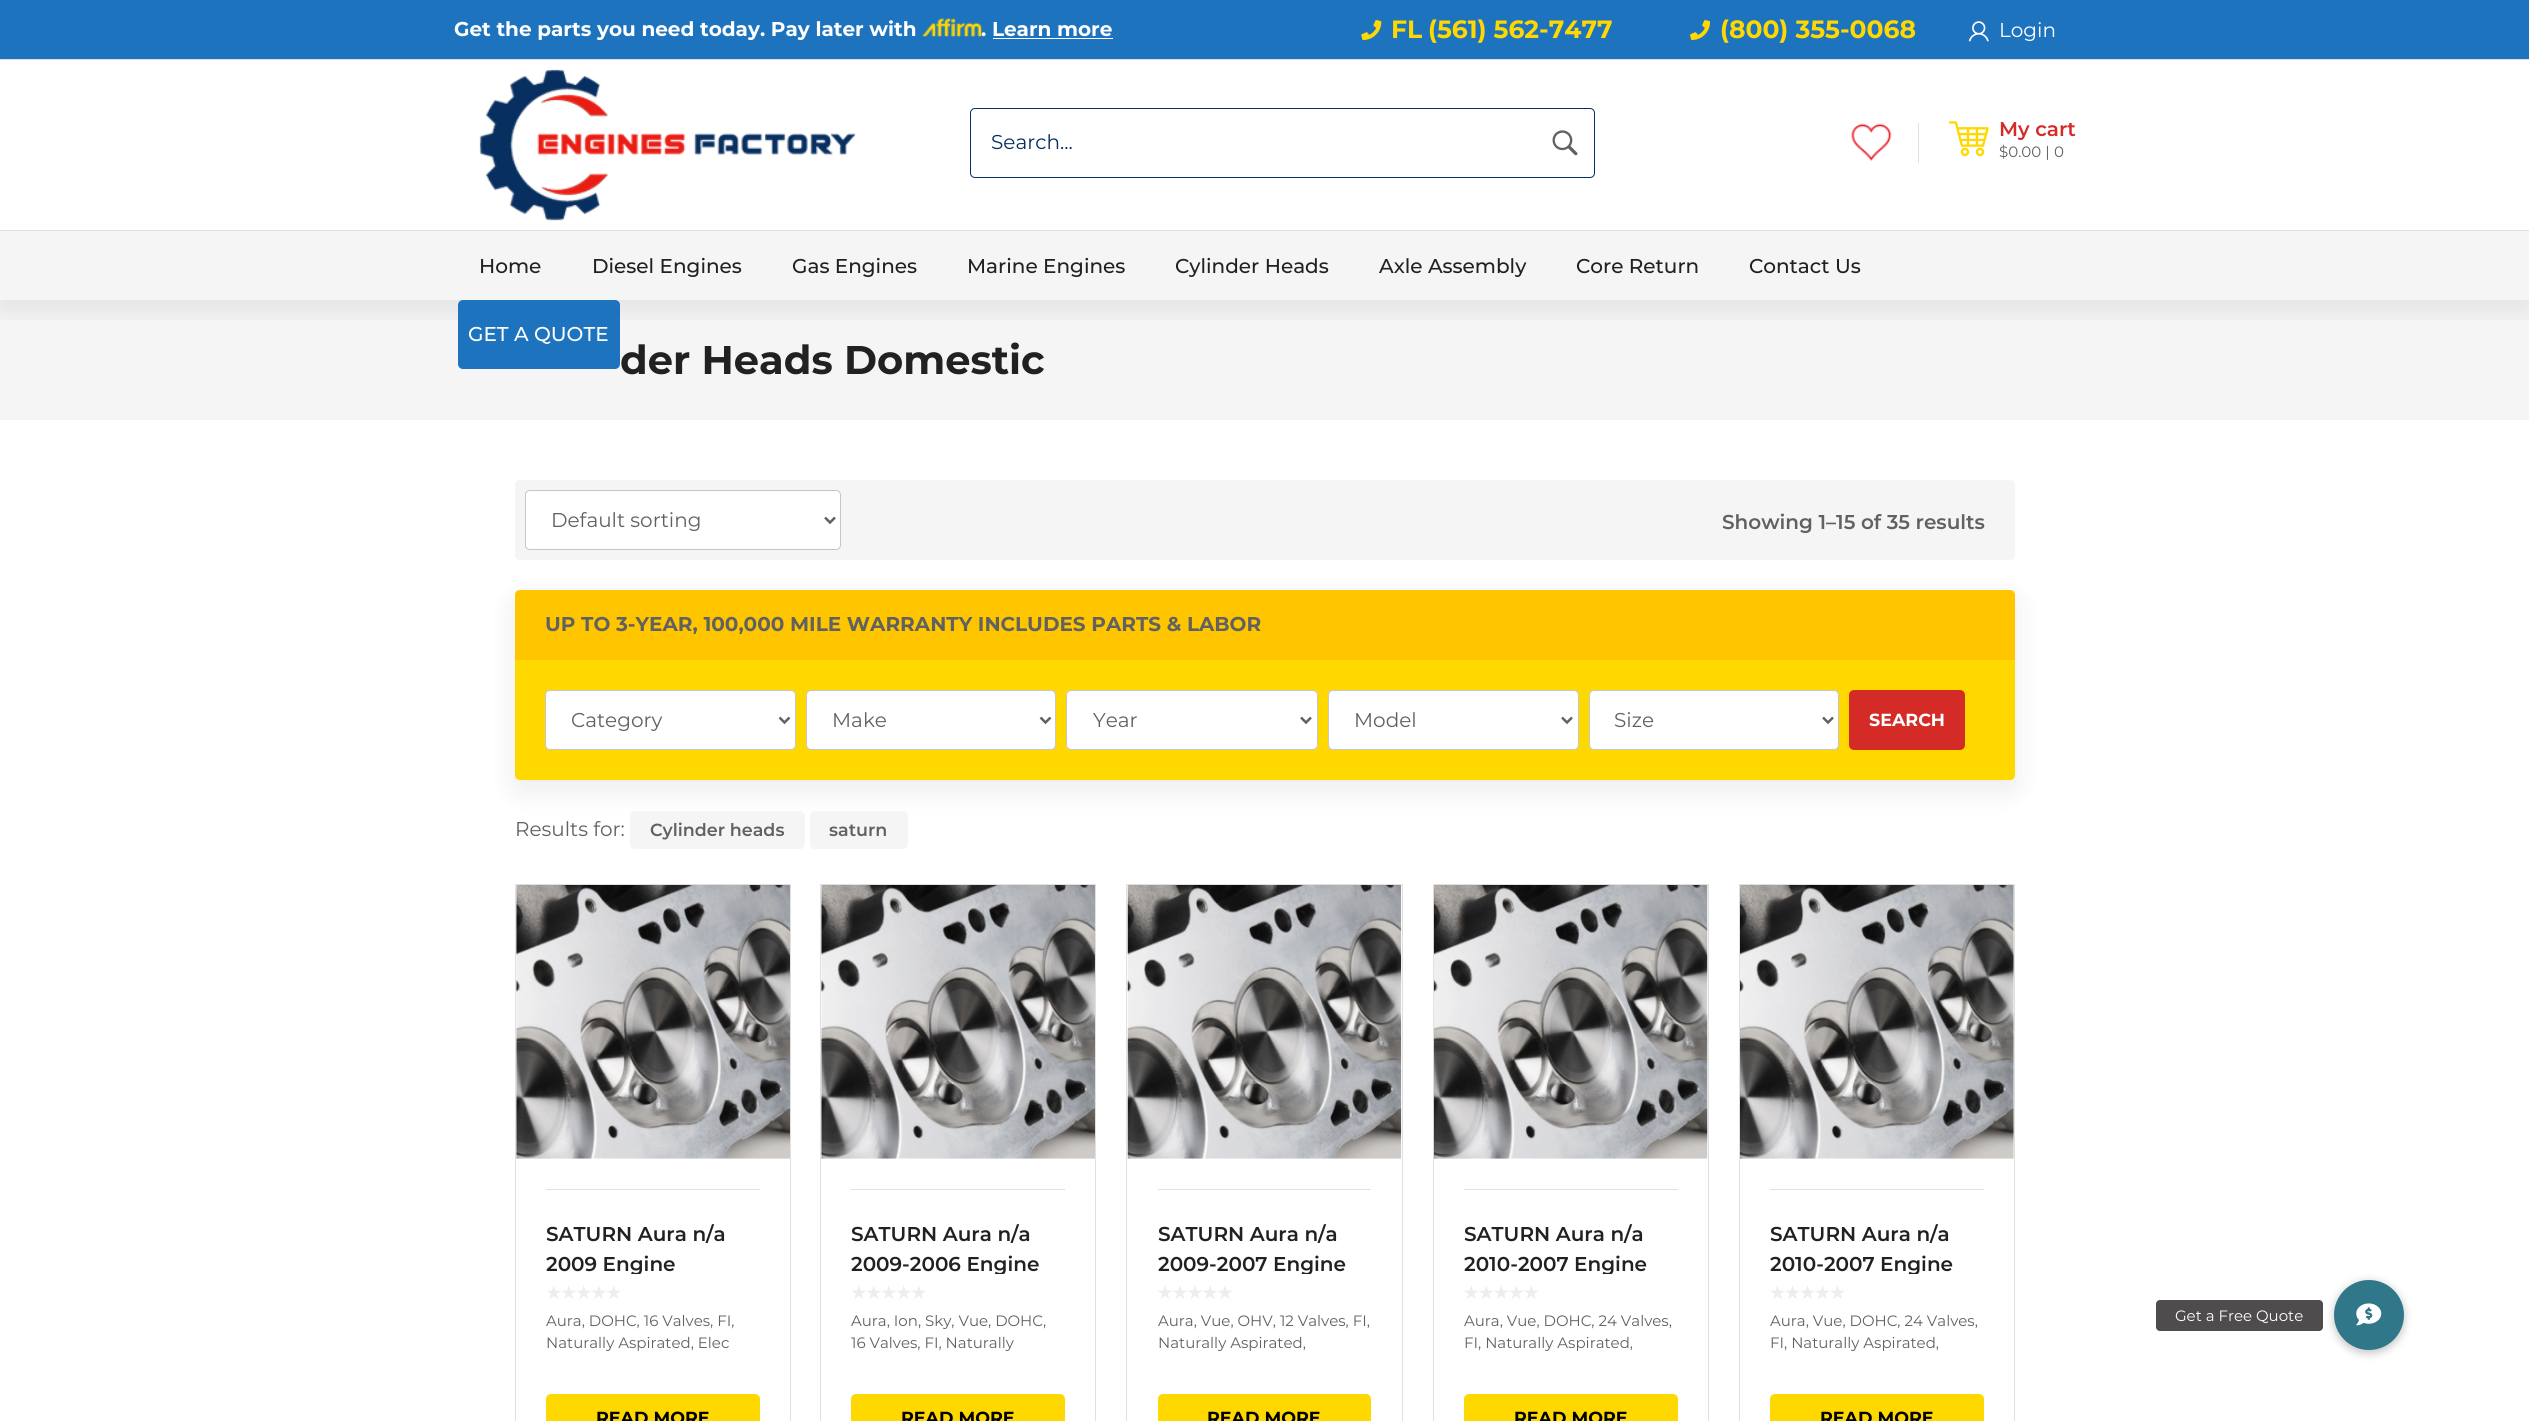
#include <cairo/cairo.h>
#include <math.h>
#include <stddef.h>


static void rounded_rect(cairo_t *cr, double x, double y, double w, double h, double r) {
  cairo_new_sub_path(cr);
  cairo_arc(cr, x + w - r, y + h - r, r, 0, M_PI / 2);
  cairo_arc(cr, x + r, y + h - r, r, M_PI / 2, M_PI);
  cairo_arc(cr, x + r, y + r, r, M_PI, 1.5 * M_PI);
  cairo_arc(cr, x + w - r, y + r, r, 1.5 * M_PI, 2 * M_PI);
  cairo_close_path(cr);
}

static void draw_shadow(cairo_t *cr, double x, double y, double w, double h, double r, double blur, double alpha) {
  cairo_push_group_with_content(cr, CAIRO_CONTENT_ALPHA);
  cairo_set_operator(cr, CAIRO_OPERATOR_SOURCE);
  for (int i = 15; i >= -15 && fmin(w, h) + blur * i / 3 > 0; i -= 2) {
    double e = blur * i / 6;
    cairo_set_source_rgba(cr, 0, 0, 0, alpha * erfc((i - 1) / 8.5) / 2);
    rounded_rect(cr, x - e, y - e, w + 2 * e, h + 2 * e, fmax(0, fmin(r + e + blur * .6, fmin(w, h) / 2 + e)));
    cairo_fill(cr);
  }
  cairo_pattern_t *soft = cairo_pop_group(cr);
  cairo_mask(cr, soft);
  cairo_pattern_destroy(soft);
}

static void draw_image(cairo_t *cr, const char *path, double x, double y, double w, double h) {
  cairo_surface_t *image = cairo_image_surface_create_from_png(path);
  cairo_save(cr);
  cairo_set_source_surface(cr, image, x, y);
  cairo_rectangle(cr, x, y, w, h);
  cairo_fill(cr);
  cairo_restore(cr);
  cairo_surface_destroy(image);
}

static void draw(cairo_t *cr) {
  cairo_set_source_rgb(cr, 1, 1, 1);
  cairo_paint(cr);
  cairo_set_source_rgb(cr, 245 / 255.0, 245 / 255.0, 245 / 255.0);
  cairo_rectangle(cr, 0, 300, 2529, 120);
  cairo_fill(cr);
  cairo_save(cr);
  cairo_rectangle(cr, 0, 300, 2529, 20);
  cairo_clip(cr);
  cairo_set_source_rgb(cr, 0, 0, 0);
  draw_shadow(cr, 0, 10, 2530, 300, 0, 15, 0.08);
  cairo_restore(cr);
  cairo_set_source_rgb(cr, 30 / 255.0, 115 / 255.0, 190 / 255.0);
  cairo_rectangle(cr, 0, 0, 2529, 59);
  cairo_fill(cr);
  cairo_set_source_rgb(cr, 224 / 255.0, 224 / 255.0, 224 / 255.0);
  cairo_rectangle(cr, 0, 59, 2529, 1);
  cairo_fill(cr);
  draw_image(cr, "images/1.png", 922, 18, 60, 19);
  cairo_set_source_rgb(cr, 1, 1, 1);
  cairo_rectangle(cr, 993, 38, 120, 1);
  cairo_fill(cr);
  draw_image(cr, "images/2.png", 1361, 20, 21, 20);
  draw_image(cr, "images/3.png", 1690, 20, 20, 20);
  draw_image(cr, "images/4.png", 1968, 21, 21, 21);
  draw_image(cr, "images/5.png", 479, 69, 377, 152);
  rounded_rect(cr, 970.5, 108.5, 624, 69, 4.5);
  cairo_set_source_rgb(cr, 7 / 255.0, 47 / 255.0, 95 / 255.0);
  cairo_set_line_width(cr, 1);
  cairo_stroke(cr);
  draw_image(cr, "images/6.png", 1552, 130, 26, 26);
  draw_image(cr, "images/7.png", 1851, 123, 41, 39);
  cairo_set_source_rgb(cr, 224 / 255.0, 224 / 255.0, 224 / 255.0);
  cairo_rectangle(cr, 1918, 123, 1, 40);
  cairo_fill(cr);
  draw_image(cr, "images/8.png", 1948, 121, 41, 36);
  cairo_set_source_rgb(cr, 245 / 255.0, 245 / 255.0, 245 / 255.0);
  cairo_rectangle(cr, 0, 231, 2529, 69);
  cairo_fill(cr);
  cairo_set_source_rgb(cr, 224 / 255.0, 224 / 255.0, 224 / 255.0);
  cairo_rectangle(cr, 0, 230, 2529, 1);
  cairo_fill(cr);
  cairo_set_source_rgb(cr, 30 / 255.0, 115 / 255.0, 190 / 255.0);
  rounded_rect(cr, 458, 300, 162, 69, 5);
  cairo_fill(cr);
  cairo_set_source_rgb(cr, 245 / 255.0, 245 / 255.0, 245 / 255.0);
  rounded_rect(cr, 515, 480, 1500, 80, 5);
  cairo_fill(cr);
  cairo_set_source_rgb(cr, 1, 1, 1);
  rounded_rect(cr, 525.5, 490.5, 315, 59, 4.5);
  cairo_fill_preserve(cr);
  cairo_set_source_rgb(cr, 198 / 255.0, 198 / 255.0, 198 / 255.0);
  cairo_stroke(cr);
  cairo_new_path(cr);
  cairo_move_to(cr, 825, 517.5);
  cairo_line_to(cr, 830, 522.5);
  cairo_line_to(cr, 835, 517.5);
  cairo_set_source_rgb(cr, 97 / 255.0, 97 / 255.0, 97 / 255.0);
  cairo_set_line_width(cr, 2.5);
  cairo_stroke(cr);
  cairo_set_source_rgb(cr, 0, 0, 0);
  draw_shadow(cr, 515, 600, 1500, 190, 5, 15, 0.08);
  cairo_set_source_rgb(cr, 1, 198 / 255.0, 0);
  cairo_new_path(cr);
  cairo_move_to(cr, 520, 590);
  cairo_line_to(cr, 2010, 590);
  cairo_curve_to(cr, 2013, 590, 2015, 592, 2015, 595);
  cairo_line_to(cr, 2015, 660);
  cairo_line_to(cr, 515, 660);
  cairo_line_to(cr, 515, 595);
  cairo_curve_to(cr, 515, 592, 517, 590, 520, 590);
  cairo_close_path(cr);
  cairo_fill(cr);
  cairo_set_source_rgb(cr, 1, 216 / 255.0, 0);
  cairo_new_path(cr);
  cairo_move_to(cr, 515, 660);
  cairo_line_to(cr, 2015, 660);
  cairo_line_to(cr, 2015, 775);
  cairo_curve_to(cr, 2015, 778, 2013, 780, 2010, 780);
  cairo_line_to(cr, 520, 780);
  cairo_curve_to(cr, 517, 780, 515, 778, 515, 775);
  cairo_close_path(cr);
  cairo_fill(cr);
  cairo_set_source_rgb(cr, 1, 1, 1);
  rounded_rect(cr, 545.5, 690.5, 250, 59, 4.5);
  cairo_fill_preserve(cr);
  cairo_set_source_rgb(cr, 198 / 255.0, 198 / 255.0, 198 / 255.0);
  cairo_set_line_width(cr, 1);
  cairo_stroke(cr);
  cairo_new_path(cr);
  cairo_move_to(cr, 779.5, 717.5);
  cairo_line_to(cr, 784.5, 722.5);
  cairo_line_to(cr, 789.5, 717.5);
  cairo_set_source_rgb(cr, 97 / 255.0, 97 / 255.0, 97 / 255.0);
  cairo_set_line_width(cr, 2.5);
  cairo_stroke(cr);
  cairo_set_source_rgb(cr, 1, 1, 1);
  rounded_rect(cr, 806.5, 690.5, 249, 59, 4.5);
  cairo_fill_preserve(cr);
  cairo_set_source_rgb(cr, 198 / 255.0, 198 / 255.0, 198 / 255.0);
  cairo_set_line_width(cr, 1);
  cairo_stroke(cr);
  cairo_new_path(cr);
  cairo_move_to(cr, 1040.5, 717.5);
  cairo_line_to(cr, 1045.5, 722.5);
  cairo_line_to(cr, 1050.5, 717.5);
  cairo_set_source_rgb(cr, 97 / 255.0, 97 / 255.0, 97 / 255.0);
  cairo_set_line_width(cr, 2.5);
  cairo_stroke(cr);
  cairo_set_source_rgb(cr, 1, 1, 1);
  rounded_rect(cr, 1066.5, 690.5, 251, 59, 4.5);
  cairo_fill_preserve(cr);
  cairo_set_source_rgb(cr, 198 / 255.0, 198 / 255.0, 198 / 255.0);
  cairo_set_line_width(cr, 1);
  cairo_stroke(cr);
  cairo_new_path(cr);
  cairo_move_to(cr, 1301, 717.5);
  cairo_line_to(cr, 1306, 722.5);
  cairo_line_to(cr, 1311, 717.5);
  cairo_set_source_rgb(cr, 97 / 255.0, 97 / 255.0, 97 / 255.0);
  cairo_set_line_width(cr, 2.5);
  cairo_stroke(cr);
  cairo_set_source_rgb(cr, 1, 1, 1);
  rounded_rect(cr, 1328.5, 690.5, 250, 59, 4.5);
  cairo_fill_preserve(cr);
  cairo_set_source_rgb(cr, 198 / 255.0, 198 / 255.0, 198 / 255.0);
  cairo_set_line_width(cr, 1);
  cairo_stroke(cr);
  cairo_new_path(cr);
  cairo_move_to(cr, 1562, 717.5);
  cairo_line_to(cr, 1567, 722.5);
  cairo_line_to(cr, 1572, 717.5);
  cairo_set_source_rgb(cr, 97 / 255.0, 97 / 255.0, 97 / 255.0);
  cairo_set_line_width(cr, 2.5);
  cairo_stroke(cr);
  cairo_set_source_rgb(cr, 1, 1, 1);
  rounded_rect(cr, 1589.5, 690.5, 249, 59, 4.5);
  cairo_fill_preserve(cr);
  cairo_set_source_rgb(cr, 198 / 255.0, 198 / 255.0, 198 / 255.0);
  cairo_set_line_width(cr, 1);
  cairo_stroke(cr);
  cairo_new_path(cr);
  cairo_move_to(cr, 1823, 717.5);
  cairo_line_to(cr, 1828, 722.5);
  cairo_line_to(cr, 1833, 717.5);
  cairo_set_source_rgb(cr, 97 / 255.0, 97 / 255.0, 97 / 255.0);
  cairo_set_line_width(cr, 2.5);
  cairo_stroke(cr);
  cairo_set_source_rgb(cr, 213 / 255.0, 43 / 255.0, 39 / 255.0);
  rounded_rect(cr, 1849, 690, 116, 60, 5);
  cairo_fill(cr);
  cairo_set_source_rgb(cr, 245 / 255.0, 245 / 255.0, 245 / 255.0);
  rounded_rect(cr, 630, 811, 175, 38, 5);
  cairo_fill(cr);
  rounded_rect(cr, 810, 811, 98, 38, 5);
  cairo_fill(cr);
  cairo_rectangle(cr, 515.5, 884.5, 275, 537);
  cairo_set_source_rgb(cr, 224 / 255.0, 224 / 255.0, 224 / 255.0);
  cairo_set_line_width(cr, 1);
  cairo_stroke(cr);
  draw_image(cr, "images/9.png", 516, 885, 274, 274);
  cairo_rectangle(cr, 546, 1189, 214, 1);
  cairo_fill(cr);
  draw_image(cr, "images/10.png", 547, 1285, 74, 14);
  cairo_set_source_rgb(cr, 1, 216 / 255.0, 0);
  rounded_rect(cr, 546, 1394, 214, 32, 5);
  cairo_fill(cr);
  cairo_rectangle(cr, 820.5, 884.5, 275, 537);
  cairo_set_source_rgb(cr, 224 / 255.0, 224 / 255.0, 224 / 255.0);
  cairo_stroke(cr);
  draw_image(cr, "images/11.png", 821, 885, 274, 274);
  cairo_rectangle(cr, 851, 1189, 214, 1);
  cairo_fill(cr);
  draw_image(cr, "images/10.png", 852, 1285, 74, 14);
  cairo_set_source_rgb(cr, 1, 216 / 255.0, 0);
  rounded_rect(cr, 851, 1394, 214, 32, 5);
  cairo_fill(cr);
  cairo_rectangle(cr, 1126.5, 884.5, 276, 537);
  cairo_set_source_rgb(cr, 224 / 255.0, 224 / 255.0, 224 / 255.0);
  cairo_stroke(cr);
  draw_image(cr, "images/12.png", 1127, 885, 275, 274);
  cairo_rectangle(cr, 1158, 1189, 213, 1);
  cairo_fill(cr);
  draw_image(cr, "images/13.png", 1158, 1286, 74, 13);
  cairo_set_source_rgb(cr, 1, 216 / 255.0, 0);
  rounded_rect(cr, 1158, 1394, 213, 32, 5);
  cairo_fill(cr);
  cairo_rectangle(cr, 1433.5, 884.5, 275, 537);
  cairo_set_source_rgb(cr, 224 / 255.0, 224 / 255.0, 224 / 255.0);
  cairo_stroke(cr);
  draw_image(cr, "images/14.png", 1433, 885, 275, 274);
  cairo_rectangle(cr, 1464, 1189, 214, 1);
  cairo_fill(cr);
  draw_image(cr, "images/15.png", 1464, 1285, 74, 14);
  cairo_set_source_rgb(cr, 1, 216 / 255.0, 0);
  rounded_rect(cr, 1464, 1394, 214, 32, 5);
  cairo_fill(cr);
  cairo_rectangle(cr, 1739.5, 884.5, 275, 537);
  cairo_set_source_rgb(cr, 224 / 255.0, 224 / 255.0, 224 / 255.0);
  cairo_stroke(cr);
  draw_image(cr, "images/16.png", 1740, 885, 274, 274);
  cairo_rectangle(cr, 1770, 1189, 214, 1);
  cairo_fill(cr);
  draw_image(cr, "images/17.png", 1770, 1285, 75, 14);
  cairo_set_source_rgb(cr, 1, 216 / 255.0, 0);
  rounded_rect(cr, 1770, 1394, 214, 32, 5);
  cairo_fill(cr);
  cairo_set_source_rgb(cr, 0, 0, 0);
  draw_shadow(cr, 2333, 1281, 72, 73, 36, 4, 0.2);
  cairo_set_source_rgb(cr, 47 / 255.0, 119 / 255.0, 137 / 255.0);
  cairo_arc(cr, 2369, 1315, 35, 0, 2 * M_PI);
  cairo_fill(cr);
  cairo_set_source_rgb(cr, 78 / 255.0, 76 / 255.0, 76 / 255.0);
  rounded_rect(cr, 2156, 1300, 167, 31, 4);
  cairo_fill(cr);
  draw_image(cr, "images/18.png", 2356, 1303, 26, 23);
  cairo_select_font_face(cr, "Montserrat", CAIRO_FONT_SLANT_NORMAL, CAIRO_FONT_WEIGHT_BOLD);
  cairo_set_font_size(cr, 20);
  cairo_set_source_rgb(cr, 1, 1, 1);
  cairo_move_to(cr, 454, 36);
  cairo_show_text(cr, "Get the parts you need today. Pay later with");
  cairo_move_to(cr, 981, 36);
  cairo_show_text(cr, ". Learn more");
  cairo_set_font_size(cr, 25);
  cairo_set_source_rgb(cr, 1, 216 / 255.0, 0);
  cairo_move_to(cr, 1391, 38);
  cairo_show_text(cr, "FL");
  cairo_move_to(cr, 1428, 38);
  cairo_show_text(cr, "(561) 562-7477");
  cairo_move_to(cr, 1720, 38);
  cairo_show_text(cr, "(800) 355-0068");
  cairo_select_font_face(cr, "Montserrat", CAIRO_FONT_SLANT_NORMAL, CAIRO_FONT_WEIGHT_NORMAL);
  cairo_set_font_size(cr, 20);
  cairo_set_source_rgb(cr, 1, 1, 1);
  cairo_move_to(cr, 1999, 37);
  cairo_show_text(cr, "Login");
  cairo_set_source_rgb(cr, 7 / 255.0, 47 / 255.0, 95 / 255.0);
  cairo_move_to(cr, 991, 149);
  cairo_show_text(cr, "Search...");
  cairo_select_font_face(cr, "Montserrat SemiBold", CAIRO_FONT_SLANT_NORMAL, CAIRO_FONT_WEIGHT_NORMAL);
  cairo_set_source_rgb(cr, 213 / 255.0, 43 / 255.0, 39 / 255.0);
  cairo_move_to(cr, 1999, 136);
  cairo_show_text(cr, "My cart");
  cairo_select_font_face(cr, "Montserrat", CAIRO_FONT_SLANT_NORMAL, CAIRO_FONT_WEIGHT_NORMAL);
  cairo_set_font_size(cr, 15);
  cairo_set_source_rgb(cr, 97 / 255.0, 97 / 255.0, 97 / 255.0);
  cairo_move_to(cr, 1999, 157);
  cairo_show_text(cr, "$0.00 |");
  cairo_move_to(cr, 2054, 157);
  cairo_show_text(cr, "0");
  cairo_select_font_face(cr, "Montserrat Medium", CAIRO_FONT_SLANT_NORMAL, CAIRO_FONT_WEIGHT_NORMAL);
  cairo_set_font_size(cr, 20);
  cairo_set_source_rgb(cr, 33 / 255.0, 33 / 255.0, 33 / 255.0);
  cairo_move_to(cr, 479, 273);
  cairo_show_text(cr, "Home");
  cairo_move_to(cr, 592, 273);
  cairo_show_text(cr, "Diesel Engines");
  cairo_move_to(cr, 792, 273);
  cairo_show_text(cr, "Gas Engines");
  cairo_move_to(cr, 967, 273);
  cairo_show_text(cr, "Marine Engines");
  cairo_move_to(cr, 1175, 273);
  cairo_show_text(cr, "Cylinder Heads");
  cairo_move_to(cr, 1379, 273);
  cairo_show_text(cr, "Axle Assembly");
  cairo_move_to(cr, 1576, 273);
  cairo_show_text(cr, "Core Return");
  cairo_move_to(cr, 1749, 273);
  cairo_show_text(cr, "Contact Us");
  cairo_set_source_rgb(cr, 1, 1, 1);
  cairo_move_to(cr, 468, 341);
  cairo_show_text(cr, "GET A QUOTE");
  cairo_select_font_face(cr, "Montserrat", CAIRO_FONT_SLANT_NORMAL, CAIRO_FONT_WEIGHT_BOLD);
  cairo_set_font_size(cr, 40);
  cairo_set_source_rgb(cr, 33 / 255.0, 33 / 255.0, 33 / 255.0);
  cairo_move_to(cr, 620, 374);
  cairo_show_text(cr, "der Heads Domestic");
  cairo_select_font_face(cr, "Montserrat", CAIRO_FONT_SLANT_NORMAL, CAIRO_FONT_WEIGHT_NORMAL);
  cairo_set_font_size(cr, 20);
  cairo_set_source_rgb(cr, 97 / 255.0, 97 / 255.0, 97 / 255.0);
  cairo_move_to(cr, 551, 527);
  cairo_show_text(cr, "Default sorting");
  cairo_select_font_face(cr, "Montserrat SemiBold", CAIRO_FONT_SLANT_NORMAL, CAIRO_FONT_WEIGHT_NORMAL);
  cairo_move_to(cr, 1722, 529);
  cairo_show_text(cr, "Showing 1–15 of 35 results");
  cairo_select_font_face(cr, "Montserrat", CAIRO_FONT_SLANT_NORMAL, CAIRO_FONT_WEIGHT_BOLD);
  cairo_move_to(cr, 545, 631);
  cairo_show_text(cr, "UP TO 3-YEAR, 100,000 MILE WARRANTY INCLUDES PARTS & LABOR");
  cairo_select_font_face(cr, "Montserrat", CAIRO_FONT_SLANT_NORMAL, CAIRO_FONT_WEIGHT_NORMAL);
  cairo_move_to(cr, 571, 727);
  cairo_show_text(cr, "Category");
  cairo_move_to(cr, 832, 727);
  cairo_show_text(cr, "Make");
  cairo_move_to(cr, 1093, 727);
  cairo_show_text(cr, "Year");
  cairo_move_to(cr, 1354, 727);
  cairo_show_text(cr, "Model");
  cairo_move_to(cr, 1614, 727);
  cairo_show_text(cr, "Size");
  cairo_select_font_face(cr, "Montserrat", CAIRO_FONT_SLANT_NORMAL, CAIRO_FONT_WEIGHT_BOLD);
  cairo_set_font_size(cr, 17.5);
  cairo_set_source_rgb(cr, 1, 1, 1);
  cairo_move_to(cr, 1869, 726);
  cairo_show_text(cr, "SEARCH");
  cairo_select_font_face(cr, "Montserrat", CAIRO_FONT_SLANT_NORMAL, CAIRO_FONT_WEIGHT_NORMAL);
  cairo_set_font_size(cr, 20);
  cairo_set_source_rgb(cr, 97 / 255.0, 97 / 255.0, 97 / 255.0);
  cairo_move_to(cr, 515, 836);
  cairo_show_text(cr, "Results for:");
  cairo_select_font_face(cr, "Montserrat SemiBold", CAIRO_FONT_SLANT_NORMAL, CAIRO_FONT_WEIGHT_NORMAL);
  cairo_set_font_size(cr, 17.5);
  cairo_move_to(cr, 650, 836);
  cairo_show_text(cr, "Cylinder heads");
  cairo_move_to(cr, 829, 836);
  cairo_show_text(cr, "saturn");
  cairo_set_font_size(cr, 20);
  cairo_set_source_rgb(cr, 33 / 255.0, 33 / 255.0, 33 / 255.0);
  cairo_move_to(cr, 546, 1241);
  cairo_show_text(cr, "SATURN Aura n/a");
  cairo_save(cr);
  cairo_rectangle(cr, 546, 1220, 214, 54);
  cairo_clip(cr);
  cairo_move_to(cr, 546, 1271);
  cairo_show_text(cr, "2009 Engine");
  cairo_restore(cr);
  cairo_select_font_face(cr, "Montserrat", CAIRO_FONT_SLANT_NORMAL, CAIRO_FONT_WEIGHT_NORMAL);
  cairo_set_font_size(cr, 15);
  cairo_set_source_rgb(cr, 97 / 255.0, 97 / 255.0, 97 / 255.0);
  cairo_move_to(cr, 546, 1326);
  cairo_show_text(cr, "Aura, DOHC, 16 Valves, FI,");
  cairo_move_to(cr, 546, 1348);
  cairo_show_text(cr, "Naturally Aspirated, Elec");
  cairo_select_font_face(cr, "Montserrat", CAIRO_FONT_SLANT_NORMAL, CAIRO_FONT_WEIGHT_BOLD);
  cairo_set_font_size(cr, 17.5);
  cairo_set_source_rgb(cr, 0, 0, 0);
  cairo_move_to(cr, 596, 1424);
  cairo_show_text(cr, "READ MORE");
  cairo_select_font_face(cr, "Montserrat SemiBold", CAIRO_FONT_SLANT_NORMAL, CAIRO_FONT_WEIGHT_NORMAL);
  cairo_set_font_size(cr, 20);
  cairo_set_source_rgb(cr, 33 / 255.0, 33 / 255.0, 33 / 255.0);
  cairo_move_to(cr, 851, 1241);
  cairo_show_text(cr, "SATURN Aura n/a");
  cairo_save(cr);
  cairo_rectangle(cr, 851, 1220, 214, 54);
  cairo_clip(cr);
  cairo_move_to(cr, 851, 1271);
  cairo_show_text(cr, "2009-2006 Engine");
  cairo_restore(cr);
  cairo_select_font_face(cr, "Montserrat", CAIRO_FONT_SLANT_NORMAL, CAIRO_FONT_WEIGHT_NORMAL);
  cairo_set_font_size(cr, 15);
  cairo_set_source_rgb(cr, 97 / 255.0, 97 / 255.0, 97 / 255.0);
  cairo_move_to(cr, 851, 1326);
  cairo_show_text(cr, "Aura, Ion, Sky, Vue, DOHC,");
  cairo_move_to(cr, 851, 1348);
  cairo_show_text(cr, "16 Valves, FI, Naturally");
  cairo_select_font_face(cr, "Montserrat", CAIRO_FONT_SLANT_NORMAL, CAIRO_FONT_WEIGHT_BOLD);
  cairo_set_font_size(cr, 17.5);
  cairo_set_source_rgb(cr, 0, 0, 0);
  cairo_move_to(cr, 901, 1424);
  cairo_show_text(cr, "READ MORE");
  cairo_select_font_face(cr, "Montserrat SemiBold", CAIRO_FONT_SLANT_NORMAL, CAIRO_FONT_WEIGHT_NORMAL);
  cairo_set_font_size(cr, 20);
  cairo_set_source_rgb(cr, 33 / 255.0, 33 / 255.0, 33 / 255.0);
  cairo_move_to(cr, 1158, 1241);
  cairo_show_text(cr, "SATURN Aura n/a");
  cairo_save(cr);
  cairo_rectangle(cr, 1158, 1220, 213, 54);
  cairo_clip(cr);
  cairo_move_to(cr, 1158, 1271);
  cairo_show_text(cr, "2009-2007 Engine");
  cairo_restore(cr);
  cairo_select_font_face(cr, "Montserrat", CAIRO_FONT_SLANT_NORMAL, CAIRO_FONT_WEIGHT_NORMAL);
  cairo_set_font_size(cr, 15);
  cairo_set_source_rgb(cr, 97 / 255.0, 97 / 255.0, 97 / 255.0);
  cairo_move_to(cr, 1158, 1326);
  cairo_show_text(cr, "Aura, Vue, OHV, 12 Valves, FI,");
  cairo_move_to(cr, 1158, 1348);
  cairo_show_text(cr, "Naturally Aspirated,");
  cairo_select_font_face(cr, "Montserrat", CAIRO_FONT_SLANT_NORMAL, CAIRO_FONT_WEIGHT_BOLD);
  cairo_set_font_size(cr, 17.5);
  cairo_set_source_rgb(cr, 0, 0, 0);
  cairo_move_to(cr, 1207, 1424);
  cairo_show_text(cr, "READ MORE");
  cairo_select_font_face(cr, "Montserrat SemiBold", CAIRO_FONT_SLANT_NORMAL, CAIRO_FONT_WEIGHT_NORMAL);
  cairo_set_font_size(cr, 20);
  cairo_set_source_rgb(cr, 33 / 255.0, 33 / 255.0, 33 / 255.0);
  cairo_move_to(cr, 1464, 1241);
  cairo_show_text(cr, "SATURN Aura n/a");
  cairo_save(cr);
  cairo_rectangle(cr, 1464, 1220, 214, 54);
  cairo_clip(cr);
  cairo_move_to(cr, 1464, 1271);
  cairo_show_text(cr, "2010-2007 Engine");
  cairo_restore(cr);
  cairo_select_font_face(cr, "Montserrat", CAIRO_FONT_SLANT_NORMAL, CAIRO_FONT_WEIGHT_NORMAL);
  cairo_set_font_size(cr, 15);
  cairo_set_source_rgb(cr, 97 / 255.0, 97 / 255.0, 97 / 255.0);
  cairo_move_to(cr, 1464, 1326);
  cairo_show_text(cr, "Aura, Vue, DOHC, 24 Valves,");
  cairo_move_to(cr, 1464, 1348);
  cairo_show_text(cr, "FI, Naturally Aspirated,");
  cairo_select_font_face(cr, "Montserrat", CAIRO_FONT_SLANT_NORMAL, CAIRO_FONT_WEIGHT_BOLD);
  cairo_set_font_size(cr, 17.5);
  cairo_set_source_rgb(cr, 0, 0, 0);
  cairo_move_to(cr, 1514, 1424);
  cairo_show_text(cr, "READ MORE");
  cairo_select_font_face(cr, "Montserrat SemiBold", CAIRO_FONT_SLANT_NORMAL, CAIRO_FONT_WEIGHT_NORMAL);
  cairo_set_font_size(cr, 20);
  cairo_set_source_rgb(cr, 33 / 255.0, 33 / 255.0, 33 / 255.0);
  cairo_move_to(cr, 1770, 1241);
  cairo_show_text(cr, "SATURN Aura n/a");
  cairo_save(cr);
  cairo_rectangle(cr, 1770, 1220, 214, 54);
  cairo_clip(cr);
  cairo_move_to(cr, 1770, 1271);
  cairo_show_text(cr, "2010-2007 Engine");
  cairo_restore(cr);
  cairo_select_font_face(cr, "Montserrat", CAIRO_FONT_SLANT_NORMAL, CAIRO_FONT_WEIGHT_NORMAL);
  cairo_set_font_size(cr, 15);
  cairo_set_source_rgb(cr, 97 / 255.0, 97 / 255.0, 97 / 255.0);
  cairo_move_to(cr, 1770, 1326);
  cairo_show_text(cr, "Aura, Vue, DOHC, 24 Valves,");
  cairo_move_to(cr, 1770, 1348);
  cairo_show_text(cr, "FI, Naturally Aspirated,");
  cairo_select_font_face(cr, "Montserrat", CAIRO_FONT_SLANT_NORMAL, CAIRO_FONT_WEIGHT_BOLD);
  cairo_set_font_size(cr, 17.5);
  cairo_set_source_rgb(cr, 0, 0, 0);
  cairo_move_to(cr, 1820, 1424);
  cairo_show_text(cr, "READ MORE");
  cairo_select_font_face(cr, "Montserrat", CAIRO_FONT_SLANT_NORMAL, CAIRO_FONT_WEIGHT_NORMAL);
  cairo_set_font_size(cr, 15);
  cairo_set_source_rgb(cr, 1, 1, 1);
  cairo_move_to(cr, 2175, 1321);
  cairo_show_text(cr, "Get a Free Quote");
}

int main(void) {
  cairo_surface_t *surface = cairo_image_surface_create(CAIRO_FORMAT_RGB24, 2529, 1421);
  cairo_t *cr = cairo_create(surface);
  cairo_font_options_t *options = cairo_font_options_create();
  cairo_font_options_set_hint_metrics(options, CAIRO_HINT_METRICS_OFF);
  cairo_font_options_set_hint_style(options, CAIRO_HINT_STYLE_NONE);
  cairo_set_font_options(cr, options);
  cairo_set_miter_limit(cr, 4);
  draw(cr);
  cairo_surface_write_to_png(surface, "out.png");
  cairo_font_options_destroy(options);
  cairo_destroy(cr);
  cairo_surface_destroy(surface);
  return 0;
}
